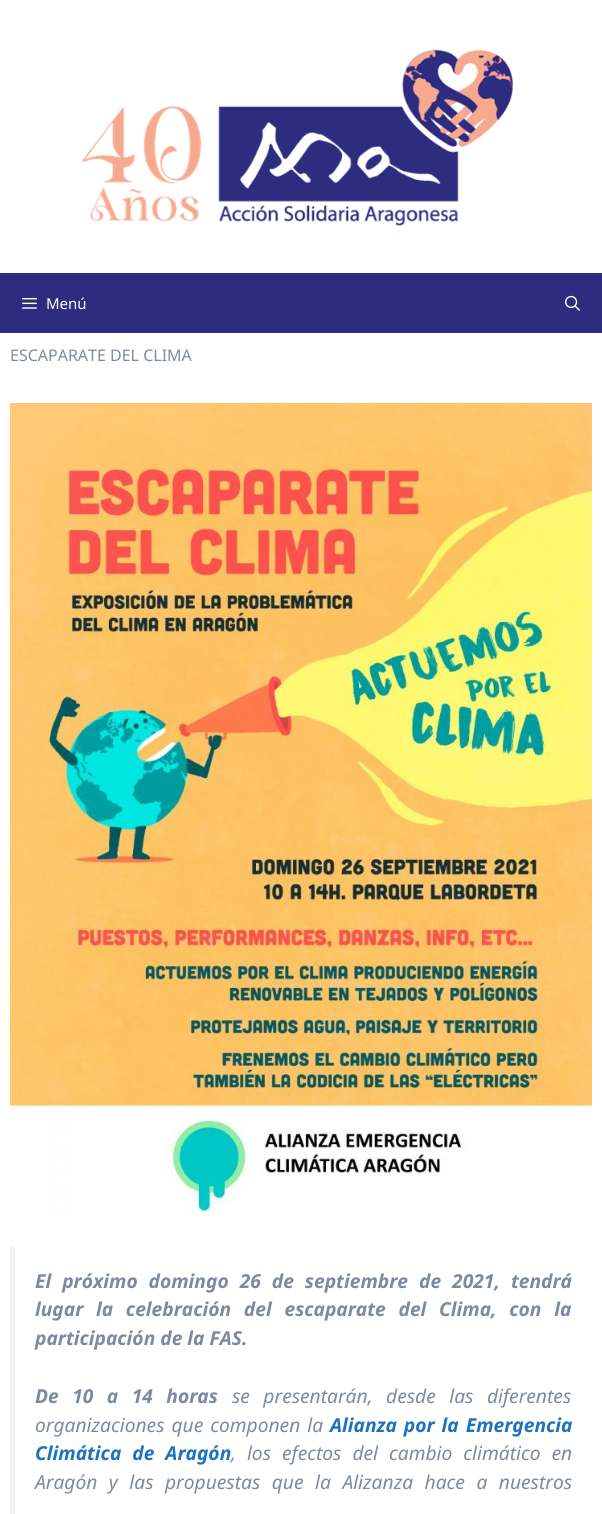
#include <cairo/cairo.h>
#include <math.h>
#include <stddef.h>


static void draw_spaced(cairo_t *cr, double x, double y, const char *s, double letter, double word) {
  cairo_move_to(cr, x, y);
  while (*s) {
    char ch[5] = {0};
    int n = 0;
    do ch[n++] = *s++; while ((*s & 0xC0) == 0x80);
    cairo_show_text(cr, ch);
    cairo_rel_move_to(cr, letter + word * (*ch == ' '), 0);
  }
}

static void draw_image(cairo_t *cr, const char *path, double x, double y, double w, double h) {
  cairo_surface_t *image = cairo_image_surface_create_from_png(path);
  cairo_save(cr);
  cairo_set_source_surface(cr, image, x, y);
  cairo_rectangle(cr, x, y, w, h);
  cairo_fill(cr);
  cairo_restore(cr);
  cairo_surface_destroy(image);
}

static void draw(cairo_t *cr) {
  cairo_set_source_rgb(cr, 1, 1, 1);
  cairo_paint(cr);
  draw_image(cr, "images/1.png", 82, 49, 431, 177);
  cairo_set_source_rgb(cr, 45 / 255.0, 44 / 255.0, 126 / 255.0);
  cairo_rectangle(cr, 0, 273, 602, 60);
  cairo_fill(cr);
  draw_image(cr, "images/2.png", 22, 298, 15, 11);
  draw_image(cr, "images/3.png", 565, 295, 15, 16);
  draw_image(cr, "images/4.png", 10, 403, 582, 812);
  cairo_set_source_rgb(cr, 242 / 255.0, 242 / 255.0, 242 / 255.0);
  cairo_rectangle(cr, 10, 1247, 5, 267);
  cairo_fill(cr);
  cairo_select_font_face(cr, "Noto Sans", CAIRO_FONT_SLANT_NORMAL, CAIRO_FONT_WEIGHT_NORMAL);
  cairo_set_font_size(cr, 15);
  cairo_set_source_rgb(cr, 1, 1, 1);
  cairo_move_to(cr, 46, 309);
  cairo_show_text(cr, "Menú");
  cairo_set_font_size(cr, 16);
  cairo_set_source_rgb(cr, 126 / 255.0, 137 / 255.0, 161 / 255.0);
  cairo_move_to(cr, 10, 361);
  cairo_show_text(cr, "ESCAPARATE DEL CLIMA");
  cairo_select_font_face(cr, "Noto Sans", CAIRO_FONT_SLANT_ITALIC, CAIRO_FONT_WEIGHT_BOLD);
  cairo_set_font_size(cr, 19.2);
  draw_spaced(cr, 35, 1288, "El próximo domingo 26 de septiembre de 2021, tendrá", 0, 6);
  draw_spaced(cr, 35, 1316, "lugar la celebración del escaparate del Clima, con la", 0, 7.75);
  cairo_move_to(cr, 35, 1345);
  cairo_show_text(cr, "participación de la FAS.");
  draw_spaced(cr, 35, 1403, "De 10 a 14 horas", 0, 8.5);
  cairo_select_font_face(cr, "Noto Sans", CAIRO_FONT_SLANT_ITALIC, CAIRO_FONT_WEIGHT_NORMAL);
  draw_spaced(cr, 232, 1403, "se presentarán, desde las diferentes", 0, 8.5);
  draw_spaced(cr, 35, 1432, "organizaciones que componen la", 0, 2);
  cairo_select_font_face(cr, "Noto Sans", CAIRO_FONT_SLANT_ITALIC, CAIRO_FONT_WEIGHT_BOLD);
  cairo_set_source_rgb(cr, 30 / 255.0, 115 / 255.0, 190 / 255.0);
  draw_spaced(cr, 330, 1432, "Alianza por la Emergencia", 0, 2);
  draw_spaced(cr, 35, 1460, "Climática de Aragón", 0, 6);
  cairo_select_font_face(cr, "Noto Sans", CAIRO_FONT_SLANT_ITALIC, CAIRO_FONT_WEIGHT_NORMAL);
  cairo_set_source_rgb(cr, 126 / 255.0, 137 / 255.0, 161 / 255.0);
  draw_spaced(cr, 231, 1460, ", los efectos del cambio climático en", 0, 6);
  draw_spaced(cr, 35, 1489, "Aragón y las propuestas que la Alizanza hace a nuestros", 0, 6.5);
}

int main(void) {
  cairo_surface_t *surface = cairo_image_surface_create(CAIRO_FORMAT_RGB24, 602, 1514);
  cairo_t *cr = cairo_create(surface);
  cairo_font_options_t *options = cairo_font_options_create();
  cairo_font_options_set_hint_metrics(options, CAIRO_HINT_METRICS_OFF);
  cairo_font_options_set_hint_style(options, CAIRO_HINT_STYLE_NONE);
  cairo_set_font_options(cr, options);
  cairo_set_miter_limit(cr, 4);
  draw(cr);
  cairo_surface_write_to_png(surface, "out.png");
  cairo_font_options_destroy(options);
  cairo_destroy(cr);
  cairo_surface_destroy(surface);
  return 0;
}
